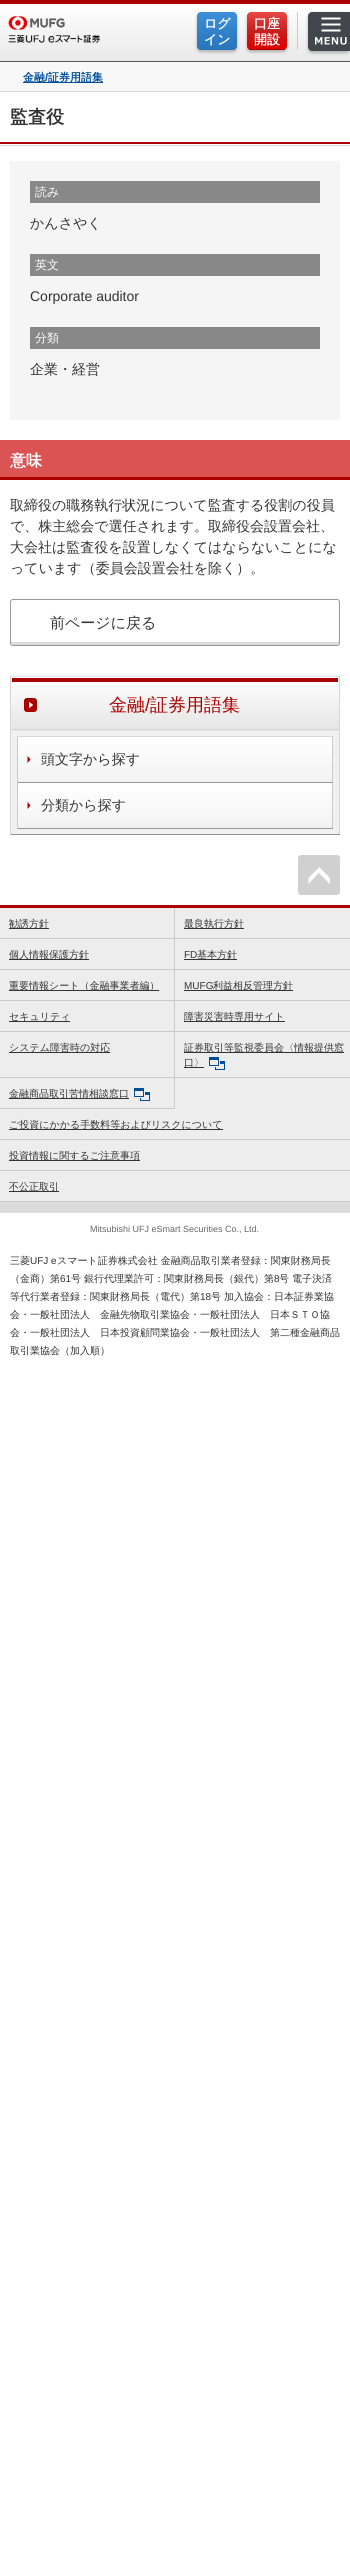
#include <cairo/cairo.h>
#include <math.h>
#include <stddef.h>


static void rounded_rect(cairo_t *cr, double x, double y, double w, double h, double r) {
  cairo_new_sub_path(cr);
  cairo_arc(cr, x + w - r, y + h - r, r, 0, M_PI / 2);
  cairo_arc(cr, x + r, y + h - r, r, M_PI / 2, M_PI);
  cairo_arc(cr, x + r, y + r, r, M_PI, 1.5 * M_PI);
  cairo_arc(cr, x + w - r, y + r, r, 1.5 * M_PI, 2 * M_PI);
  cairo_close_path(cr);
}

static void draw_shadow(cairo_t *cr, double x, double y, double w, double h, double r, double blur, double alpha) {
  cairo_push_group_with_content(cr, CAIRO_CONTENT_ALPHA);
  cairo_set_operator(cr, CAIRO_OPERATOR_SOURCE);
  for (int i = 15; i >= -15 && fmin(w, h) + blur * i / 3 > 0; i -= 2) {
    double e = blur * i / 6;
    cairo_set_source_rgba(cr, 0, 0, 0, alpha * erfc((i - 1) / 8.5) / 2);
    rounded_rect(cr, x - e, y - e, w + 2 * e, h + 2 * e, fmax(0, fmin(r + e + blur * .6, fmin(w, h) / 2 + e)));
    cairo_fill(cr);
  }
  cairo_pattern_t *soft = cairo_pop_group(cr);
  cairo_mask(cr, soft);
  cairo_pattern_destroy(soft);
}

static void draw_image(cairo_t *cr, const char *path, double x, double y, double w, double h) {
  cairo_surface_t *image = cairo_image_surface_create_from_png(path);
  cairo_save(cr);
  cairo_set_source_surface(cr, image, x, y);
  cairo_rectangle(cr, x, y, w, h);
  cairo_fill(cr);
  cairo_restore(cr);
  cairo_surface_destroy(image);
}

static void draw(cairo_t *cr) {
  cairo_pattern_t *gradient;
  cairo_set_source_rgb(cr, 1, 1, 1);
  cairo_paint(cr);
  gradient = cairo_pattern_create_linear(0, 4, 0, 61);
  cairo_pattern_add_color_stop_rgba(gradient, 0, 1, 1, 1, 1);
  cairo_pattern_add_color_stop_rgba(gradient, 1, 233 / 255.0, 233 / 255.0, 233 / 255.0, 1);
  cairo_set_source(cr, gradient);
  cairo_pattern_destroy(gradient);
  cairo_rectangle(cr, 0, 10, 350, 51);
  cairo_fill(cr);
  cairo_set_source_rgb(cr, 170 / 255.0, 0, 0);
  cairo_rectangle(cr, 0, 0, 350, 4);
  cairo_fill(cr);
  cairo_set_source_rgb(cr, 88 / 255.0, 88 / 255.0, 88 / 255.0);
  cairo_rectangle(cr, 0, 61, 350, 1);
  cairo_fill(cr);
  draw_image(cr, "images/1.png", 8, 16, 93, 27);
  cairo_set_source_rgb(cr, 202 / 255.0, 202 / 255.0, 202 / 255.0);
  cairo_rectangle(cr, 297, 12, 1, 38);
  cairo_fill(cr);
  cairo_set_source_rgb(cr, 0, 0, 0);
  draw_shadow(cr, 197, 14, 40, 38, 4, 1.5, 0.26);
  gradient = cairo_pattern_create_linear(197, 12, 197, 50);
  cairo_pattern_add_color_stop_rgba(gradient, 0, 60 / 255.0, 143 / 255.0, 216 / 255.0, 1);
  cairo_pattern_add_color_stop_rgba(gradient, 1, 40 / 255.0, 117 / 255.0, 186 / 255.0, 1);
  cairo_set_source(cr, gradient);
  cairo_pattern_destroy(gradient);
  rounded_rect(cr, 197, 12, 40, 38, 4);
  cairo_fill(cr);
  cairo_set_source_rgb(cr, 0, 0, 0);
  draw_shadow(cr, 247, 14, 40, 38, 4, 1.5, 0.26);
  cairo_save(cr);
  rounded_rect(cr, 247, 12, 40, 38, 4);
  cairo_clip(cr);
  gradient = cairo_pattern_create_linear(247, 12, 247, 49);
  cairo_pattern_add_color_stop_rgba(gradient, 0, 234 / 255.0, 71 / 255.0, 71 / 255.0, 1);
  cairo_pattern_add_color_stop_rgba(gradient, 0.5, 199 / 255.0, 32 / 255.0, 32 / 255.0, 1);
  cairo_pattern_add_color_stop_rgba(gradient, 1, 223 / 255.0, 0, 0, 1);
  cairo_set_source(cr, gradient);
  cairo_pattern_destroy(gradient);
  cairo_new_path(cr);
  cairo_move_to(cr, 251, 12);
  cairo_line_to(cr, 283, 12);
  cairo_curve_to(cr, 285, 12, 287, 14, 287, 16);
  cairo_line_to(cr, 287, 49);
  cairo_line_to(cr, 247, 49);
  cairo_line_to(cr, 247, 16);
  cairo_curve_to(cr, 247, 14, 249, 12, 251, 12);
  cairo_close_path(cr);
  cairo_fill(cr);
  cairo_restore(cr);
  cairo_set_source_rgb(cr, 170 / 255.0, 0, 0);
  cairo_rectangle(cr, 249, 49, 36, 1);
  cairo_fill(cr);
  cairo_set_source_rgb(cr, 0, 0, 0);
  draw_shadow(cr, 308, 14, 42, 39, 4, 1.5, 0.26);
  cairo_set_source_rgb(cr, 67 / 255.0, 70 / 255.0, 76 / 255.0);
  cairo_new_path(cr);
  cairo_move_to(cr, 312, 12);
  cairo_line_to(cr, 350, 12);
  cairo_line_to(cr, 350, 51);
  cairo_line_to(cr, 312, 51);
  cairo_curve_to(cr, 310, 51, 308, 49, 308, 47);
  cairo_line_to(cr, 308, 16);
  cairo_curve_to(cr, 308, 14, 310, 12, 312, 12);
  cairo_close_path(cr);
  cairo_fill(cr);
  draw_image(cr, "images/2.png", 321, 17, 20, 15);
  draw_image(cr, "images/3.png", 315, 37, 32, 8);
  cairo_set_source_rgb(cr, 248 / 255.0, 248 / 255.0, 248 / 255.0);
  cairo_rectangle(cr, 0, 62, 350, 29);
  cairo_fill(cr);
  cairo_set_source_rgb(cr, 213 / 255.0, 213 / 255.0, 213 / 255.0);
  cairo_rectangle(cr, 0, 91, 350, 1);
  cairo_fill(cr);
  cairo_set_source_rgb(cr, 0, 77 / 255.0, 153 / 255.0);
  cairo_rectangle(cr, 23, 82, 80, 1);
  cairo_fill(cr);
  cairo_set_source_rgb(cr, 213 / 255.0, 213 / 255.0, 213 / 255.0);
  cairo_rectangle(cr, 0, 145, 350, 1);
  cairo_fill(cr);
  cairo_set_source_rgb(cr, 170 / 255.0, 0, 0);
  cairo_rectangle(cr, 0, 142, 350, 2);
  cairo_fill(cr);
  cairo_set_source_rgb(cr, 245 / 255.0, 245 / 255.0, 245 / 255.0);
  cairo_rectangle(cr, 10, 161, 330, 259);
  cairo_fill(cr);
  cairo_set_source_rgb(cr, 136 / 255.0, 136 / 255.0, 136 / 255.0);
  cairo_rectangle(cr, 30, 181, 290, 22);
  cairo_fill(cr);
  cairo_rectangle(cr, 30, 254, 290, 22);
  cairo_fill(cr);
  cairo_rectangle(cr, 30, 327, 290, 22);
  cairo_fill(cr);
  cairo_set_source_rgb(cr, 220 / 255.0, 83 / 255.0, 84 / 255.0);
  cairo_rectangle(cr, 0, 440, 350, 37);
  cairo_fill(cr);
  cairo_set_source_rgb(cr, 170 / 255.0, 0, 0);
  cairo_rectangle(cr, 0, 477, 350, 3);
  cairo_fill(cr);
  cairo_set_source_rgb(cr, 221 / 255.0, 221 / 255.0, 221 / 255.0);
  cairo_new_path(cr);
  cairo_move_to(cr, 11, 640);
  cairo_line_to(cr, 11, 643);
  cairo_curve_to(cr, 11, 644, 12, 645, 13, 645);
  cairo_line_to(cr, 337, 645);
  cairo_curve_to(cr, 338, 645, 339, 644, 339, 643);
  cairo_line_to(cr, 339, 640);
  cairo_curve_to(cr, 339, 641, 338, 642, 337, 642);
  cairo_line_to(cr, 13, 642);
  cairo_curve_to(cr, 12, 642, 11, 641, 11, 640);
  cairo_close_path(cr);
  cairo_fill(cr);
  rounded_rect(cr, 10.5, 599.5, 329, 46, 2.5);
  cairo_set_source_rgb(cr, 153 / 255.0, 153 / 255.0, 153 / 255.0);
  cairo_set_line_width(cr, 1);
  cairo_stroke(cr);
  cairo_set_source_rgb(cr, 230 / 255.0, 230 / 255.0, 230 / 255.0);
  cairo_rectangle(cr, 10, 676, 330, 1);
  cairo_fill(cr);
  cairo_set_source_rgb(cr, 213 / 255.0, 213 / 255.0, 213 / 255.0);
  cairo_rectangle(cr, 339, 676, 1, 159);
  cairo_fill(cr);
  cairo_set_source_rgb(cr, 145 / 255.0, 145 / 255.0, 145 / 255.0);
  cairo_rectangle(cr, 10, 834, 330, 1);
  cairo_fill(cr);
  cairo_set_source_rgb(cr, 213 / 255.0, 213 / 255.0, 213 / 255.0);
  cairo_rectangle(cr, 10, 676, 1, 159);
  cairo_fill(cr);
  gradient = cairo_pattern_create_linear(175, 677, 175, 731);
  cairo_pattern_add_color_stop_rgba(gradient, 0, 1, 1, 1, 1);
  cairo_pattern_add_color_stop_rgba(gradient, 1, 229 / 255.0, 229 / 255.0, 229 / 255.0, 1);
  cairo_set_source(cr, gradient);
  cairo_pattern_destroy(gradient);
  cairo_rectangle(cr, 11, 682, 328, 49);
  cairo_fill(cr);
  cairo_set_source_rgb(cr, 170 / 255.0, 0, 0);
  cairo_rectangle(cr, 12, 678, 326, 4);
  cairo_fill(cr);
  cairo_set_source_rgb(cr, 213 / 255.0, 213 / 255.0, 213 / 255.0);
  cairo_rectangle(cr, 12, 729, 326, 1);
  cairo_fill(cr);
  draw_image(cr, "images/4.png", 24, 698, 13, 14);
  cairo_set_source_rgb(cr, 241 / 255.0, 241 / 255.0, 241 / 255.0);
  cairo_rectangle(cr, 11, 731, 328, 103);
  cairo_fill(cr);
  gradient = cairo_pattern_create_linear(175, 737, 175, 782);
  cairo_pattern_add_color_stop_rgba(gradient, 0, 1, 1, 1, 1);
  cairo_pattern_add_color_stop_rgba(gradient, 1, 243 / 255.0, 243 / 255.0, 243 / 255.0, 1);
  cairo_set_source(cr, gradient);
  cairo_pattern_destroy(gradient);
  cairo_rectangle(cr, 18, 737, 314, 43);
  cairo_fill(cr);
  cairo_set_source_rgb(cr, 217 / 255.0, 217 / 255.0, 217 / 255.0);
  cairo_rectangle(cr, 17, 736, 316, 1);
  cairo_fill(cr);
  cairo_set_source_rgb(cr, 201 / 255.0, 201 / 255.0, 201 / 255.0);
  cairo_rectangle(cr, 332, 736, 1, 93);
  cairo_fill(cr);
  cairo_set_source_rgb(cr, 152 / 255.0, 152 / 255.0, 152 / 255.0);
  cairo_rectangle(cr, 17, 782, 316, 1);
  cairo_fill(cr);
  cairo_set_source_rgb(cr, 201 / 255.0, 201 / 255.0, 201 / 255.0);
  cairo_rectangle(cr, 17, 736, 1, 47);
  cairo_fill(cr);
  cairo_set_source_rgb(cr, 170 / 255.0, 0, 0);
  cairo_new_path(cr);
  cairo_move_to(cr, 27.5, 763);
  cairo_line_to(cr, 27.5, 756);
  cairo_line_to(cr, 30.5, 759.5);
  cairo_close_path(cr);
  cairo_fill(cr);
  gradient = cairo_pattern_create_linear(175, 783, 175, 828);
  cairo_pattern_add_color_stop_rgba(gradient, 0, 1, 1, 1, 1);
  cairo_pattern_add_color_stop_rgba(gradient, 1, 243 / 255.0, 243 / 255.0, 243 / 255.0, 1);
  cairo_set_source(cr, gradient);
  cairo_pattern_destroy(gradient);
  cairo_rectangle(cr, 18, 783, 314, 43);
  cairo_fill(cr);
  cairo_set_source_rgb(cr, 152 / 255.0, 152 / 255.0, 152 / 255.0);
  cairo_rectangle(cr, 17, 828, 316, 1);
  cairo_fill(cr);
  cairo_set_source_rgb(cr, 201 / 255.0, 201 / 255.0, 201 / 255.0);
  cairo_rectangle(cr, 17, 783, 1, 46);
  cairo_fill(cr);
  cairo_set_source_rgb(cr, 170 / 255.0, 0, 0);
  cairo_new_path(cr);
  cairo_move_to(cr, 27.5, 809);
  cairo_line_to(cr, 27.5, 802);
  cairo_line_to(cr, 30.5, 805.5);
  cairo_close_path(cr);
  cairo_fill(cr);
  cairo_set_source_rgb(cr, 208 / 255.0, 208 / 255.0, 208 / 255.0);
  rounded_rect(cr, 298, 855, 42, 40, 3);
  cairo_fill(cr);
  draw_image(cr, "images/5.png", 308, 867, 22, 17);
  cairo_set_source_rgb(cr, 219 / 255.0, 219 / 255.0, 219 / 255.0);
  cairo_rectangle(cr, 0, 1202, 350, 11);
  cairo_fill(cr);
  cairo_set_source_rgb(cr, 170 / 255.0, 0, 0);
  cairo_rectangle(cr, 0, 905, 350, 3);
  cairo_fill(cr);
  cairo_set_source_rgb(cr, 237 / 255.0, 237 / 255.0, 237 / 255.0);
  cairo_rectangle(cr, 0, 908, 350, 293);
  cairo_fill(cr);
  cairo_set_source_rgb(cr, 204 / 255.0, 204 / 255.0, 204 / 255.0);
  cairo_rectangle(cr, 174, 908, 1, 201);
  cairo_fill(cr);
  cairo_rectangle(cr, 0, 938, 350, 1);
  cairo_fill(cr);
  cairo_set_source_rgb(cr, 51 / 255.0, 51 / 255.0, 51 / 255.0);
  cairo_rectangle(cr, 9, 928, 40, 1);
  cairo_fill(cr);
  cairo_rectangle(cr, 184, 928, 60, 1);
  cairo_fill(cr);
  cairo_set_source_rgb(cr, 204 / 255.0, 204 / 255.0, 204 / 255.0);
  cairo_rectangle(cr, 0, 969, 350, 1);
  cairo_fill(cr);
  cairo_set_source_rgb(cr, 51 / 255.0, 51 / 255.0, 51 / 255.0);
  cairo_rectangle(cr, 9, 959, 80, 1);
  cairo_fill(cr);
  cairo_rectangle(cr, 184, 959, 53, 1);
  cairo_fill(cr);
  cairo_set_source_rgb(cr, 204 / 255.0, 204 / 255.0, 204 / 255.0);
  cairo_rectangle(cr, 0, 1000, 350, 1);
  cairo_fill(cr);
  cairo_set_source_rgb(cr, 51 / 255.0, 51 / 255.0, 51 / 255.0);
  cairo_rectangle(cr, 9, 990, 150, 1);
  cairo_fill(cr);
  cairo_rectangle(cr, 184, 990, 109, 1);
  cairo_fill(cr);
  cairo_set_source_rgb(cr, 204 / 255.0, 204 / 255.0, 204 / 255.0);
  cairo_rectangle(cr, 0, 1031, 350, 1);
  cairo_fill(cr);
  cairo_set_source_rgb(cr, 51 / 255.0, 51 / 255.0, 51 / 255.0);
  cairo_rectangle(cr, 9, 1021, 61, 1);
  cairo_fill(cr);
  cairo_rectangle(cr, 184, 1021, 101, 1);
  cairo_fill(cr);
  cairo_set_source_rgb(cr, 204 / 255.0, 204 / 255.0, 204 / 255.0);
  cairo_rectangle(cr, 0, 1077, 350, 1);
  cairo_fill(cr);
  cairo_set_source_rgb(cr, 51 / 255.0, 51 / 255.0, 51 / 255.0);
  cairo_rectangle(cr, 9, 1052, 101, 1);
  cairo_fill(cr);
  cairo_rectangle(cr, 184, 1052, 160, 1);
  cairo_fill(cr);
  cairo_rectangle(cr, 184, 1067, 20, 1);
  cairo_fill(cr);
  draw_image(cr, "images/6.png", 209, 1057, 16, 13);
  cairo_set_source_rgb(cr, 204 / 255.0, 204 / 255.0, 204 / 255.0);
  cairo_rectangle(cr, 0, 1108, 175, 1);
  cairo_fill(cr);
  cairo_set_source_rgb(cr, 51 / 255.0, 51 / 255.0, 51 / 255.0);
  cairo_rectangle(cr, 9, 1098, 120, 1);
  cairo_fill(cr);
  draw_image(cr, "images/6.png", 134, 1088, 16, 13);
  cairo_set_source_rgb(cr, 204 / 255.0, 204 / 255.0, 204 / 255.0);
  cairo_rectangle(cr, 0, 1139, 350, 1);
  cairo_fill(cr);
  cairo_set_source_rgb(cr, 51 / 255.0, 51 / 255.0, 51 / 255.0);
  cairo_rectangle(cr, 9, 1129, 214, 1);
  cairo_fill(cr);
  cairo_set_source_rgb(cr, 204 / 255.0, 204 / 255.0, 204 / 255.0);
  cairo_rectangle(cr, 0, 1170, 350, 1);
  cairo_fill(cr);
  cairo_set_source_rgb(cr, 51 / 255.0, 51 / 255.0, 51 / 255.0);
  cairo_rectangle(cr, 9, 1160, 131, 1);
  cairo_fill(cr);
  cairo_set_source_rgb(cr, 204 / 255.0, 204 / 255.0, 204 / 255.0);
  cairo_rectangle(cr, 0, 1201, 350, 1);
  cairo_fill(cr);
  cairo_set_source_rgb(cr, 51 / 255.0, 51 / 255.0, 51 / 255.0);
  cairo_rectangle(cr, 9, 1191, 50, 1);
  cairo_fill(cr);
  cairo_select_font_face(cr, "WenQuanYi Zen Hei", CAIRO_FONT_SLANT_NORMAL, CAIRO_FONT_WEIGHT_BOLD);
  cairo_set_font_size(cr, 13);
  cairo_set_source_rgb(cr, 1, 1, 1);
  cairo_move_to(cr, 204, 28);
  cairo_show_text(cr, "ログ");
  cairo_move_to(cr, 204, 44);
  cairo_show_text(cr, "イン");
  cairo_move_to(cr, 254, 28);
  cairo_show_text(cr, "口座");
  cairo_move_to(cr, 254, 44);
  cairo_show_text(cr, "開設");
  cairo_set_font_size(cr, 11);
  cairo_set_source_rgb(cr, 0, 77 / 255.0, 153 / 255.0);
  cairo_move_to(cr, 23, 81);
  cairo_show_text(cr, "金融");
  cairo_select_font_face(cr, "Liberation Sans", CAIRO_FONT_SLANT_NORMAL, CAIRO_FONT_WEIGHT_BOLD);
  cairo_move_to(cr, 45, 81);
  cairo_show_text(cr, "/");
  cairo_select_font_face(cr, "WenQuanYi Zen Hei", CAIRO_FONT_SLANT_NORMAL, CAIRO_FONT_WEIGHT_BOLD);
  cairo_move_to(cr, 48, 81);
  cairo_show_text(cr, "証券用語集");
  cairo_set_font_size(cr, 18);
  cairo_set_source_rgb(cr, 51 / 255.0, 51 / 255.0, 51 / 255.0);
  cairo_move_to(cr, 10, 123);
  cairo_show_text(cr, "監査役");
  cairo_select_font_face(cr, "WenQuanYi Zen Hei Medium", CAIRO_FONT_SLANT_NORMAL, CAIRO_FONT_WEIGHT_NORMAL);
  cairo_set_font_size(cr, 12);
  cairo_set_source_rgb(cr, 1, 1, 1);
  cairo_move_to(cr, 35, 196);
  cairo_show_text(cr, "読み");
  cairo_set_font_size(cr, 14);
  cairo_set_source_rgb(cr, 51 / 255.0, 51 / 255.0, 51 / 255.0);
  cairo_move_to(cr, 30, 228);
  cairo_show_text(cr, "かんさやく");
  cairo_set_font_size(cr, 12);
  cairo_set_source_rgb(cr, 1, 1, 1);
  cairo_move_to(cr, 35, 269);
  cairo_show_text(cr, "英文");
  cairo_select_font_face(cr, "Liberation Sans", CAIRO_FONT_SLANT_NORMAL, CAIRO_FONT_WEIGHT_NORMAL);
  cairo_set_font_size(cr, 14);
  cairo_set_source_rgb(cr, 51 / 255.0, 51 / 255.0, 51 / 255.0);
  cairo_move_to(cr, 30, 301);
  cairo_show_text(cr, "Corporate auditor");
  cairo_select_font_face(cr, "WenQuanYi Zen Hei Medium", CAIRO_FONT_SLANT_NORMAL, CAIRO_FONT_WEIGHT_NORMAL);
  cairo_set_font_size(cr, 12);
  cairo_set_source_rgb(cr, 1, 1, 1);
  cairo_move_to(cr, 35, 342);
  cairo_show_text(cr, "分類");
  cairo_set_font_size(cr, 14);
  cairo_set_source_rgb(cr, 51 / 255.0, 51 / 255.0, 51 / 255.0);
  cairo_move_to(cr, 30, 374);
  cairo_show_text(cr, "企業・経営");
  cairo_select_font_face(cr, "WenQuanYi Zen Hei", CAIRO_FONT_SLANT_NORMAL, CAIRO_FONT_WEIGHT_BOLD);
  cairo_set_font_size(cr, 16);
  cairo_set_source_rgb(cr, 1, 1, 1);
  cairo_move_to(cr, 10, 466);
  cairo_show_text(cr, "意味");
  cairo_select_font_face(cr, "WenQuanYi Zen Hei Medium", CAIRO_FONT_SLANT_NORMAL, CAIRO_FONT_WEIGHT_NORMAL);
  cairo_set_font_size(cr, 14);
  cairo_set_source_rgb(cr, 51 / 255.0, 51 / 255.0, 51 / 255.0);
  cairo_move_to(cr, 10, 510);
  cairo_show_text(cr, "取締役の職務執行状況について監査する役割の役員");
  cairo_move_to(cr, 10, 531);
  cairo_show_text(cr, "で、株主総会で選任されます。取締役会設置会社、");
  cairo_move_to(cr, 10, 552);
  cairo_show_text(cr, "大会社は監査役を設置しなくてはならないことにな");
  cairo_move_to(cr, 10, 573);
  cairo_show_text(cr, "っています（委員会設置会社を除く）。");
  cairo_set_font_size(cr, 15);
  cairo_move_to(cr, 50, 628);
  cairo_show_text(cr, "前ページに戻る");
  cairo_set_font_size(cr, 18);
  cairo_set_source_rgb(cr, 170 / 255.0, 0, 0);
  cairo_move_to(cr, 109, 711);
  cairo_show_text(cr, "金融");
  cairo_select_font_face(cr, "Liberation Sans", CAIRO_FONT_SLANT_NORMAL, CAIRO_FONT_WEIGHT_NORMAL);
  cairo_move_to(cr, 145, 711);
  cairo_show_text(cr, "/");
  cairo_select_font_face(cr, "WenQuanYi Zen Hei Medium", CAIRO_FONT_SLANT_NORMAL, CAIRO_FONT_WEIGHT_NORMAL);
  cairo_move_to(cr, 150, 711);
  cairo_show_text(cr, "証券用語集");
  cairo_set_font_size(cr, 14);
  cairo_set_source_rgb(cr, 51 / 255.0, 51 / 255.0, 51 / 255.0);
  cairo_move_to(cr, 41, 764);
  cairo_show_text(cr, "頭文字から探す");
  cairo_move_to(cr, 41, 810);
  cairo_show_text(cr, "分類から探す");
  cairo_set_font_size(cr, 10);
  cairo_move_to(cr, 9, 927);
  cairo_show_text(cr, "勧誘方針");
  cairo_move_to(cr, 184, 927);
  cairo_show_text(cr, "最良執行方針");
  cairo_move_to(cr, 9, 958);
  cairo_show_text(cr, "個人情報保護方針");
  cairo_select_font_face(cr, "Liberation Sans", CAIRO_FONT_SLANT_NORMAL, CAIRO_FONT_WEIGHT_NORMAL);
  cairo_move_to(cr, 184, 958);
  cairo_show_text(cr, "FD");
  cairo_select_font_face(cr, "WenQuanYi Zen Hei Medium", CAIRO_FONT_SLANT_NORMAL, CAIRO_FONT_WEIGHT_NORMAL);
  cairo_move_to(cr, 197, 958);
  cairo_show_text(cr, "基本方針");
  cairo_move_to(cr, 9, 989);
  cairo_show_text(cr, "重要情報シート（金融事業者編）");
  cairo_select_font_face(cr, "Liberation Sans", CAIRO_FONT_SLANT_NORMAL, CAIRO_FONT_WEIGHT_NORMAL);
  cairo_move_to(cr, 184, 989);
  cairo_show_text(cr, "MUFG");
  cairo_select_font_face(cr, "WenQuanYi Zen Hei Medium", CAIRO_FONT_SLANT_NORMAL, CAIRO_FONT_WEIGHT_NORMAL);
  cairo_move_to(cr, 213, 989);
  cairo_show_text(cr, "利益相反管理方針");
  cairo_move_to(cr, 9, 1020);
  cairo_show_text(cr, "セキュリティ");
  cairo_move_to(cr, 184, 1020);
  cairo_show_text(cr, "障害災害時専用サイト");
  cairo_move_to(cr, 9, 1051);
  cairo_show_text(cr, "システム障害時の対応");
  cairo_move_to(cr, 184, 1051);
  cairo_show_text(cr, "証券取引等監視委員会〈情報提供窓");
  cairo_move_to(cr, 184, 1066);
  cairo_show_text(cr, "口〉");
  cairo_move_to(cr, 9, 1097);
  cairo_show_text(cr, "金融商品取引苦情相談窓口");
  cairo_move_to(cr, 9, 1128);
  cairo_show_text(cr, "ご投資にかかる手数料等およびリスクについて");
  cairo_move_to(cr, 9, 1159);
  cairo_show_text(cr, "投資情報に関するご注意事項");
  cairo_move_to(cr, 9, 1190);
  cairo_show_text(cr, "不公正取引");
  cairo_select_font_face(cr, "Liberation Sans", CAIRO_FONT_SLANT_NORMAL, CAIRO_FONT_WEIGHT_NORMAL);
  cairo_set_font_size(cr, 9);
  cairo_set_source_rgb(cr, 102 / 255.0, 102 / 255.0, 102 / 255.0);
  cairo_move_to(cr, 90, 1232);
  cairo_show_text(cr, "Mitsubishi UFJ eSmart Securities Co., Ltd.");
  cairo_select_font_face(cr, "WenQuanYi Zen Hei Medium", CAIRO_FONT_SLANT_NORMAL, CAIRO_FONT_WEIGHT_NORMAL);
  cairo_set_font_size(cr, 10);
  cairo_set_source_rgb(cr, 51 / 255.0, 51 / 255.0, 51 / 255.0);
  cairo_move_to(cr, 10, 1264);
  cairo_show_text(cr, "三菱");
  cairo_select_font_face(cr, "Liberation Sans", CAIRO_FONT_SLANT_NORMAL, CAIRO_FONT_WEIGHT_NORMAL);
  cairo_move_to(cr, 30, 1264);
  cairo_show_text(cr, "UFJ e");
  cairo_select_font_face(cr, "WenQuanYi Zen Hei Medium", CAIRO_FONT_SLANT_NORMAL, CAIRO_FONT_WEIGHT_NORMAL);
  cairo_move_to(cr, 57, 1264);
  cairo_show_text(cr, "スマート証券株式会社 金融商品取引業者登録：関東財務局長");
  cairo_move_to(cr, 10, 1282);
  cairo_show_text(cr, "（金商）第");
  cairo_select_font_face(cr, "Liberation Sans", CAIRO_FONT_SLANT_NORMAL, CAIRO_FONT_WEIGHT_NORMAL);
  cairo_move_to(cr, 60, 1282);
  cairo_show_text(cr, "61");
  cairo_select_font_face(cr, "WenQuanYi Zen Hei Medium", CAIRO_FONT_SLANT_NORMAL, CAIRO_FONT_WEIGHT_NORMAL);
  cairo_move_to(cr, 71, 1282);
  cairo_show_text(cr, "号 銀行代理業許可：関東財務局長（銀代）第");
  cairo_select_font_face(cr, "Liberation Sans", CAIRO_FONT_SLANT_NORMAL, CAIRO_FONT_WEIGHT_NORMAL);
  cairo_move_to(cr, 274, 1282);
  cairo_show_text(cr, "8");
  cairo_select_font_face(cr, "WenQuanYi Zen Hei Medium", CAIRO_FONT_SLANT_NORMAL, CAIRO_FONT_WEIGHT_NORMAL);
  cairo_move_to(cr, 279, 1282);
  cairo_show_text(cr, "号 電子決済");
  cairo_move_to(cr, 10, 1300);
  cairo_show_text(cr, "等代行業者登録：関東財務局長（電代）第");
  cairo_select_font_face(cr, "Liberation Sans", CAIRO_FONT_SLANT_NORMAL, CAIRO_FONT_WEIGHT_NORMAL);
  cairo_move_to(cr, 200, 1300);
  cairo_show_text(cr, "18");
  cairo_select_font_face(cr, "WenQuanYi Zen Hei Medium", CAIRO_FONT_SLANT_NORMAL, CAIRO_FONT_WEIGHT_NORMAL);
  cairo_move_to(cr, 211, 1300);
  cairo_show_text(cr, "号 加入協会：日本証券業協");
  cairo_move_to(cr, 10, 1318);
  cairo_show_text(cr, "会・一般社団法人　金融先物取引業協会・一般社団法人　日本ＳＴＯ協");
  cairo_move_to(cr, 10, 1336);
  cairo_show_text(cr, "会・一般社団法人　日本投資顧問業協会・一般社団法人　第二種金融商品");
  cairo_move_to(cr, 10, 1354);
  cairo_show_text(cr, "取引業協会（加入順）");
}

int main(void) {
  cairo_surface_t *surface = cairo_image_surface_create(CAIRO_FORMAT_RGB24, 350, 2558);
  cairo_t *cr = cairo_create(surface);
  cairo_font_options_t *options = cairo_font_options_create();
  cairo_font_options_set_hint_metrics(options, CAIRO_HINT_METRICS_OFF);
  cairo_font_options_set_hint_style(options, CAIRO_HINT_STYLE_NONE);
  cairo_set_font_options(cr, options);
  cairo_set_miter_limit(cr, 4);
  draw(cr);
  cairo_surface_write_to_png(surface, "out.png");
  cairo_font_options_destroy(options);
  cairo_destroy(cr);
  cairo_surface_destroy(surface);
  return 0;
}
